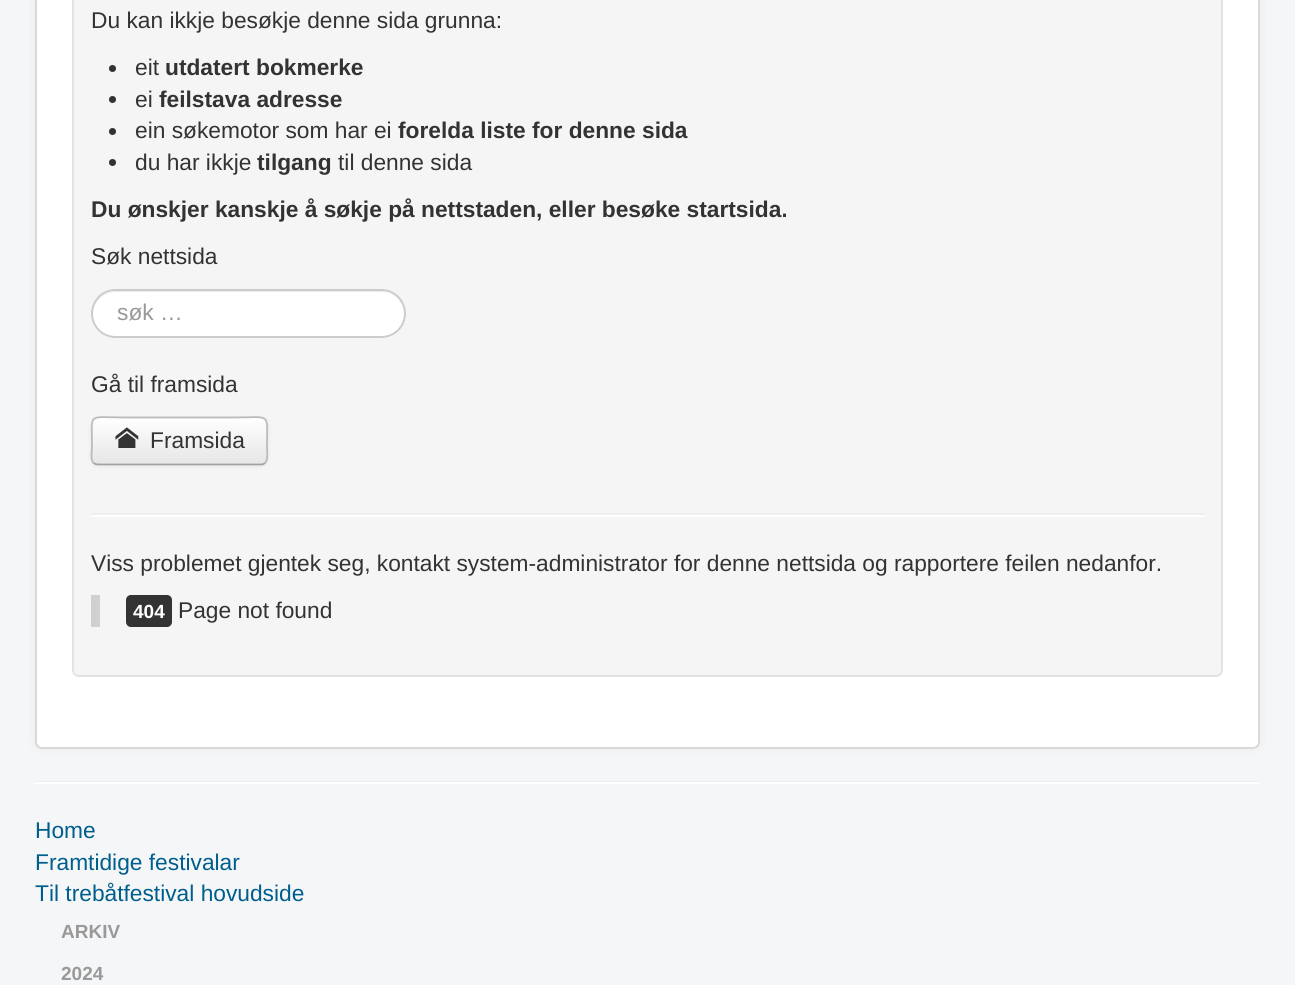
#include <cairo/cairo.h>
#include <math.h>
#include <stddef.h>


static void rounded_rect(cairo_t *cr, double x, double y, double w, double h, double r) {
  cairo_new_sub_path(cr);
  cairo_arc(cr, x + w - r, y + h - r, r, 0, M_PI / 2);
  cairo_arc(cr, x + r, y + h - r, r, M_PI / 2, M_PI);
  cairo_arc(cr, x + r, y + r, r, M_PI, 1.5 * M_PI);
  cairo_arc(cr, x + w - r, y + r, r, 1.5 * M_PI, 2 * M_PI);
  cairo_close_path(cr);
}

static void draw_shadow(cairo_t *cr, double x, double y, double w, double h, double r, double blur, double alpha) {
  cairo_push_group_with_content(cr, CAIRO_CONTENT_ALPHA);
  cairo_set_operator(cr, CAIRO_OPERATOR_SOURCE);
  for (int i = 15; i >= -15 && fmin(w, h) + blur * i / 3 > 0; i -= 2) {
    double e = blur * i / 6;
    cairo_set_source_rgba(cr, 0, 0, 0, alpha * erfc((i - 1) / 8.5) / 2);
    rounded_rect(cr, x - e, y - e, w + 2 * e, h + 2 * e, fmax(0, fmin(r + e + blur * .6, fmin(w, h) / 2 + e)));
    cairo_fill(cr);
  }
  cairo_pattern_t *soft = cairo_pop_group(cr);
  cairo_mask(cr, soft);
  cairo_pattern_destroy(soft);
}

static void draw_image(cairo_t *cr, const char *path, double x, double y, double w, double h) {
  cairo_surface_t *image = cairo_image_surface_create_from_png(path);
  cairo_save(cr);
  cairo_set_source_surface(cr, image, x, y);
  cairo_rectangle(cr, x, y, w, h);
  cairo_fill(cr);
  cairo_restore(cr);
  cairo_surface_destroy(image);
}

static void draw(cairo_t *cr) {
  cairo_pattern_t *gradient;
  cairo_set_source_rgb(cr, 244 / 255.0, 246 / 255.0, 247 / 255.0);
  cairo_paint(cr);
  cairo_set_source_rgb(cr, 0, 0, 0);
  draw_shadow(cr, 35, -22, 1225, 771, 7, 5, 0.05);
  cairo_set_source_rgb(cr, 1, 1, 1);
  rounded_rect(cr, 35, -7, 1225, 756, 7);
  cairo_fill(cr);
  rounded_rect(cr, 36, -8, 1223, 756, 6);
  cairo_set_source_rgba(cr, 0, 0, 0, 0.15);
  cairo_stroke(cr);
  cairo_set_source_rgb(cr, 245 / 255.0, 245 / 255.0, 245 / 255.0);
  rounded_rect(cr, 73, -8, 1149, 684, 6);
  cairo_fill_preserve(cr);
  cairo_set_source_rgb(cr, 227 / 255.0, 227 / 255.0, 227 / 255.0);
  cairo_stroke(cr);
  cairo_set_source_rgb(cr, 51 / 255.0, 51 / 255.0, 51 / 255.0);
  cairo_arc(cr, 112.5, 68.5, 3.5, 0, 2 * M_PI);
  cairo_fill(cr);
  cairo_arc(cr, 112.5, 99.5, 3.5, 0, 2 * M_PI);
  cairo_fill(cr);
  cairo_arc(cr, 112.5, 131.5, 3.5, 0, 2 * M_PI);
  cairo_fill(cr);
  cairo_arc(cr, 112.5, 162.5, 3.5, 0, 2 * M_PI);
  cairo_fill(cr);
  cairo_set_source_rgb(cr, 1, 1, 1);
  rounded_rect(cr, 91, 289, 315, 49, 24.5);
  cairo_fill(cr);
  cairo_set_source_rgb(cr, 236 / 255.0, 236 / 255.0, 236 / 255.0);
  cairo_new_path(cr);
  cairo_move_to(cr, 116, 292);
  cairo_line_to(cr, 382, 292);
  cairo_curve_to(cr, 394, 292, 404, 302, 404, 314);
  cairo_curve_to(cr, 405, 281, 353, 291, 337, 291);
  cairo_line_to(cr, 160, 291);
  cairo_curve_to(cr, 144, 291, 92, 281, 93, 314);
  cairo_curve_to(cr, 93, 302, 103, 292, 116, 292);
  cairo_close_path(cr);
  cairo_fill(cr);
  rounded_rect(cr, 92, 290, 313, 47, 23.5);
  cairo_set_source_rgb(cr, 204 / 255.0, 204 / 255.0, 204 / 255.0);
  cairo_stroke(cr);
  cairo_set_source_rgb(cr, 0, 0, 0);
  draw_shadow(cr, 91, 418, 177, 49, 7, 2, 0.05);
  cairo_set_source_rgb(cr, 245 / 255.0, 245 / 255.0, 245 / 255.0);
  rounded_rect(cr, 91, 417, 177, 49, 7);
  cairo_fill(cr);
  cairo_save(cr);
  rounded_rect(cr, 91, 417, 177, 49, 7);
  cairo_clip(cr);
  gradient = cairo_pattern_create_linear(179, 418, 179, 464);
  cairo_pattern_add_color_stop_rgba(gradient, 0, 1, 1, 1, 1);
  cairo_pattern_add_color_stop_rgba(gradient, 1, 230 / 255.0, 230 / 255.0, 230 / 255.0, 1);
  cairo_set_source(cr, gradient);
  cairo_pattern_destroy(gradient);
  cairo_rectangle(cr, 91, 418, 177, 46);
  cairo_fill(cr);
  cairo_restore(cr);
  cairo_new_path(cr);
  cairo_move_to(cr, 265, 463);
  cairo_curve_to(cr, 264, 464, 262.5, 464.5, 261, 464.5);
  cairo_line_to(cr, 98, 464.5);
  cairo_curve_to(cr, 96.5, 464.5, 95, 464, 93.5, 463);
  cairo_set_source_rgb(cr, 162 / 255.0, 162 / 255.0, 162 / 255.0);
  cairo_set_line_width(cr, 1.8);
  cairo_stroke(cr);
  cairo_new_path(cr);
  cairo_move_to(cr, 93.5, 463);
  cairo_curve_to(cr, 90, 459.5, 92, 450.5, 92, 447);
  cairo_curve_to(cr, 92, 411.5, 86.5, 417.5, 125, 417.5);
  cairo_line_to(cr, 233.5, 417.5);
  cairo_curve_to(cr, 272, 417.5, 267, 411.5, 267, 447);
  cairo_curve_to(cr, 267, 450.5, 268.5, 459.5, 265, 463);
  cairo_set_source_rgb(cr, 187 / 255.0, 187 / 255.0, 187 / 255.0);
  cairo_stroke(cr);
  draw_image(cr, "images/1.png", 115, 427, 24, 21);
  cairo_set_source_rgb(cr, 238 / 255.0, 238 / 255.0, 238 / 255.0);
  cairo_rectangle(cr, 91, 513, 1113, 2);
  cairo_fill(cr);
  cairo_set_source_rgb(cr, 1, 1, 1);
  cairo_rectangle(cr, 91, 515, 1113, 2);
  cairo_fill(cr);
  cairo_set_source_rgb(cr, 208 / 255.0, 208 / 255.0, 208 / 255.0);
  cairo_rectangle(cr, 91, 595, 9, 32);
  cairo_fill(cr);
  cairo_set_source_rgb(cr, 51 / 255.0, 51 / 255.0, 51 / 255.0);
  rounded_rect(cr, 126, 595, 46, 32, 5);
  cairo_fill(cr);
  cairo_set_source_rgb(cr, 238 / 255.0, 238 / 255.0, 238 / 255.0);
  cairo_rectangle(cr, 35, 781, 1225, 1);
  cairo_fill(cr);
  cairo_set_source_rgb(cr, 1, 1, 1);
  cairo_rectangle(cr, 35, 782, 1225, 2);
  cairo_fill(cr);
  cairo_select_font_face(cr, "Liberation Sans", CAIRO_FONT_SLANT_NORMAL, CAIRO_FONT_WEIGHT_NORMAL);
  cairo_set_font_size(cr, 22.75);
  cairo_set_source_rgb(cr, 51 / 255.0, 51 / 255.0, 51 / 255.0);
  cairo_move_to(cr, 91, 28);
  cairo_show_text(cr, "Du kan ikkje besøkje denne sida grunna:");
  cairo_move_to(cr, 135, 75);
  cairo_show_text(cr, "eit");
  cairo_select_font_face(cr, "Liberation Sans", CAIRO_FONT_SLANT_NORMAL, CAIRO_FONT_WEIGHT_BOLD);
  cairo_move_to(cr, 165, 75);
  cairo_show_text(cr, "utdatert bokmerke");
  cairo_select_font_face(cr, "Liberation Sans", CAIRO_FONT_SLANT_NORMAL, CAIRO_FONT_WEIGHT_NORMAL);
  cairo_move_to(cr, 135, 107);
  cairo_show_text(cr, "ei");
  cairo_select_font_face(cr, "Liberation Sans", CAIRO_FONT_SLANT_NORMAL, CAIRO_FONT_WEIGHT_BOLD);
  cairo_move_to(cr, 159, 107);
  cairo_show_text(cr, "feilstava adresse");
  cairo_select_font_face(cr, "Liberation Sans", CAIRO_FONT_SLANT_NORMAL, CAIRO_FONT_WEIGHT_NORMAL);
  cairo_move_to(cr, 135, 138);
  cairo_show_text(cr, "ein søkemotor som har ei");
  cairo_select_font_face(cr, "Liberation Sans", CAIRO_FONT_SLANT_NORMAL, CAIRO_FONT_WEIGHT_BOLD);
  cairo_move_to(cr, 398, 138);
  cairo_show_text(cr, "forelda liste for denne sida");
  cairo_select_font_face(cr, "Liberation Sans", CAIRO_FONT_SLANT_NORMAL, CAIRO_FONT_WEIGHT_NORMAL);
  cairo_move_to(cr, 135, 170);
  cairo_show_text(cr, "du har ikkje");
  cairo_select_font_face(cr, "Liberation Sans", CAIRO_FONT_SLANT_NORMAL, CAIRO_FONT_WEIGHT_BOLD);
  cairo_move_to(cr, 257, 170);
  cairo_show_text(cr, "tilgang");
  cairo_select_font_face(cr, "Liberation Sans", CAIRO_FONT_SLANT_NORMAL, CAIRO_FONT_WEIGHT_NORMAL);
  cairo_move_to(cr, 338, 170);
  cairo_show_text(cr, "til denne sida");
  cairo_select_font_face(cr, "Liberation Sans", CAIRO_FONT_SLANT_NORMAL, CAIRO_FONT_WEIGHT_BOLD);
  cairo_move_to(cr, 91, 217);
  cairo_show_text(cr, "Du ønskjer kanskje å søkje på nettstaden, eller besøke startsida.");
  cairo_select_font_face(cr, "Liberation Sans", CAIRO_FONT_SLANT_NORMAL, CAIRO_FONT_WEIGHT_NORMAL);
  cairo_move_to(cr, 91, 264);
  cairo_show_text(cr, "Søk nettsida");
  cairo_set_source_rgb(cr, 153 / 255.0, 153 / 255.0, 153 / 255.0);
  cairo_move_to(cr, 117, 320);
  cairo_show_text(cr, "søk …");
  cairo_set_source_rgb(cr, 51 / 255.0, 51 / 255.0, 51 / 255.0);
  cairo_move_to(cr, 91, 392);
  cairo_show_text(cr, "Gå til framsida");
  cairo_move_to(cr, 150, 448);
  cairo_show_text(cr, "Framsida");
  cairo_move_to(cr, 91, 571);
  cairo_show_text(cr, "Viss problemet gjentek seg, kontakt system-administrator for denne nettsida og rapportere feilen nedanfor.");
  cairo_select_font_face(cr, "Liberation Sans", CAIRO_FONT_SLANT_NORMAL, CAIRO_FONT_WEIGHT_BOLD);
  cairo_set_font_size(cr, 19);
  cairo_set_source_rgb(cr, 1, 1, 1);
  cairo_move_to(cr, 133, 618);
  cairo_show_text(cr, "404");
  cairo_select_font_face(cr, "Liberation Sans", CAIRO_FONT_SLANT_NORMAL, CAIRO_FONT_WEIGHT_NORMAL);
  cairo_set_font_size(cr, 22.75);
  cairo_set_source_rgb(cr, 51 / 255.0, 51 / 255.0, 51 / 255.0);
  cairo_move_to(cr, 178, 618);
  cairo_show_text(cr, "Page not found");
  cairo_set_source_rgb(cr, 0, 94 / 255.0, 141 / 255.0);
  cairo_move_to(cr, 35, 838);
  cairo_show_text(cr, "Home");
  cairo_move_to(cr, 35, 870);
  cairo_show_text(cr, "Framtidige festivalar");
  cairo_move_to(cr, 35, 901);
  cairo_show_text(cr, "Til trebåtfestival hovudside");
  cairo_select_font_face(cr, "Liberation Sans", CAIRO_FONT_SLANT_NORMAL, CAIRO_FONT_WEIGHT_BOLD);
  cairo_set_font_size(cr, 19);
  cairo_set_source_rgb(cr, 153 / 255.0, 153 / 255.0, 153 / 255.0);
  cairo_move_to(cr, 61, 938);
  cairo_show_text(cr, "ARKIV");
  cairo_move_to(cr, 61, 980);
  cairo_show_text(cr, "2024");
}

int main(void) {
  cairo_surface_t *surface = cairo_image_surface_create(CAIRO_FORMAT_RGB24, 1295, 985);
  cairo_t *cr = cairo_create(surface);
  cairo_font_options_t *options = cairo_font_options_create();
  cairo_font_options_set_hint_metrics(options, CAIRO_HINT_METRICS_OFF);
  cairo_font_options_set_hint_style(options, CAIRO_HINT_STYLE_NONE);
  cairo_set_font_options(cr, options);
  cairo_set_miter_limit(cr, 4);
  draw(cr);
  cairo_surface_write_to_png(surface, "out.png");
  cairo_font_options_destroy(options);
  cairo_destroy(cr);
  cairo_surface_destroy(surface);
  return 0;
}
